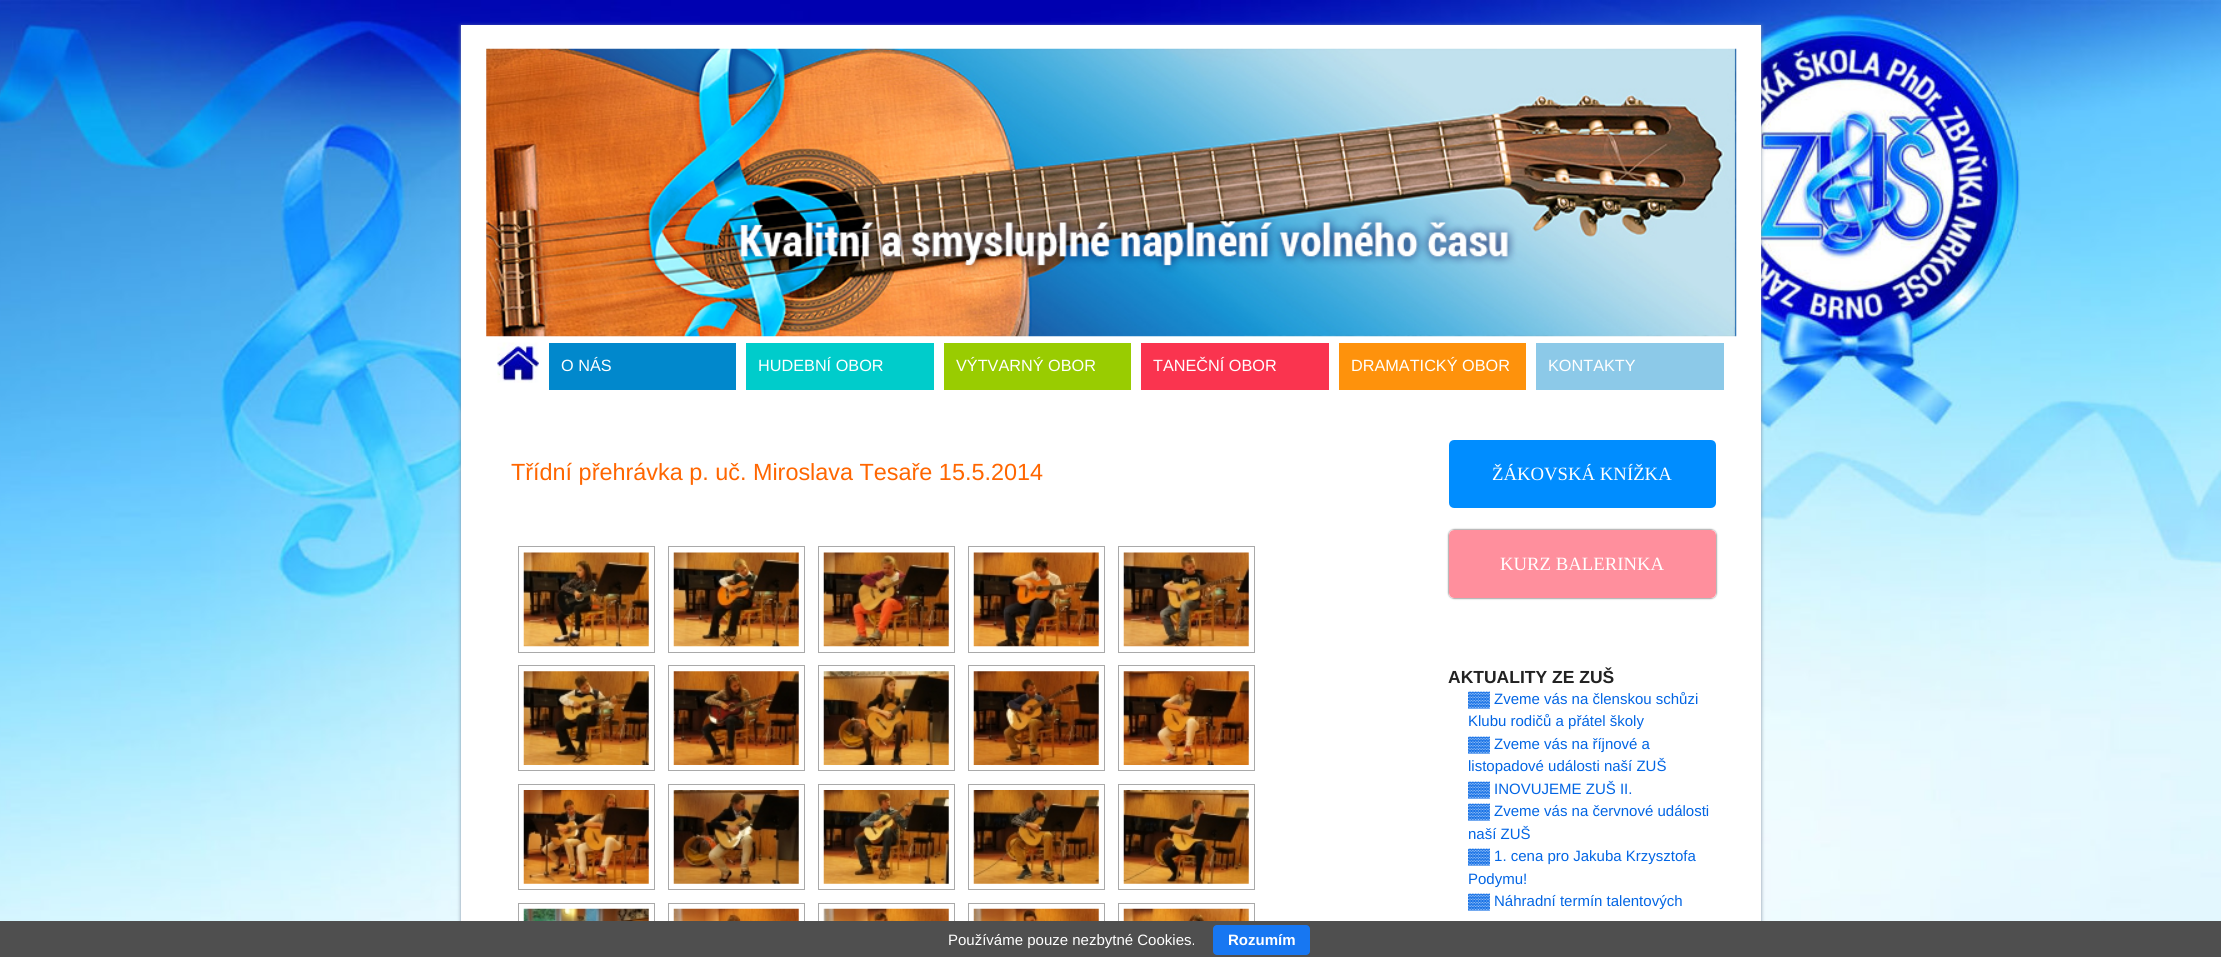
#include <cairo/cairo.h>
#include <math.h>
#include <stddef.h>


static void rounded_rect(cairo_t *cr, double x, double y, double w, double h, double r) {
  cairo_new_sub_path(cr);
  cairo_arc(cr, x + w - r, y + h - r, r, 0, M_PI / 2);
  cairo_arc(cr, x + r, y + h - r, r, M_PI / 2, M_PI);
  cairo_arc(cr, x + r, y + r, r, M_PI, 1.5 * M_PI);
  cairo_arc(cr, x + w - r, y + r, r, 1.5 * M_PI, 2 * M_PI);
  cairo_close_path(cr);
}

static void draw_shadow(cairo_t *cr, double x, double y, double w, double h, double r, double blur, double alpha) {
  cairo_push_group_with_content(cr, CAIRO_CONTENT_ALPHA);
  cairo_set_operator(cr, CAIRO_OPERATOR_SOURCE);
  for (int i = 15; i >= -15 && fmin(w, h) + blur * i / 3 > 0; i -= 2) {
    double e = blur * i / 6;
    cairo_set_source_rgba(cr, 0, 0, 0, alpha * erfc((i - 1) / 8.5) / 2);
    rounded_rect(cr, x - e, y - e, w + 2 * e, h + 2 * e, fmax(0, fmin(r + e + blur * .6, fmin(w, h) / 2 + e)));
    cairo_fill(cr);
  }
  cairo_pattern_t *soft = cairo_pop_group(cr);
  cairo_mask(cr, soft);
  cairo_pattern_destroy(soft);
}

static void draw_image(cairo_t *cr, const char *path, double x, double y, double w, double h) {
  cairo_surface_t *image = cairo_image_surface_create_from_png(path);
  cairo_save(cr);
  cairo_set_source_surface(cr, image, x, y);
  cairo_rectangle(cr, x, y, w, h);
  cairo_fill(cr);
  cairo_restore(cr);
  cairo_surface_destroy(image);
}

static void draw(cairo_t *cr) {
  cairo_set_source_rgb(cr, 1, 1, 1);
  cairo_paint(cr);
  draw_image(cr, "images/1.png", 0, 0, 2221, 921);
  cairo_set_source_rgb(cr, 132 / 255.0, 147 / 255.0, 166 / 255.0);
  draw_shadow(cr, 461, 26, 1300, 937, 0, 2, 1);
  cairo_set_source_rgb(cr, 1, 1, 1);
  cairo_rectangle(cr, 461, 25, 1300, 896);
  cairo_fill(cr);
  draw_image(cr, "images/2.png", 486, 48, 1251, 289);
  draw_image(cr, "images/3.png", 497, 342, 42, 41);
  cairo_set_source_rgb(cr, 1 / 255.0, 136 / 255.0, 204 / 255.0);
  cairo_rectangle(cr, 549, 343, 187, 47);
  cairo_fill(cr);
  cairo_set_source_rgb(cr, 0, 204 / 255.0, 203 / 255.0);
  cairo_rectangle(cr, 746, 343, 188, 47);
  cairo_fill(cr);
  cairo_set_source_rgb(cr, 153 / 255.0, 204 / 255.0, 1 / 255.0);
  cairo_rectangle(cr, 944, 343, 187, 47);
  cairo_fill(cr);
  cairo_set_source_rgb(cr, 250 / 255.0, 52 / 255.0, 79 / 255.0);
  cairo_rectangle(cr, 1141, 343, 188, 47);
  cairo_fill(cr);
  cairo_set_source_rgb(cr, 254 / 255.0, 146 / 255.0, 12 / 255.0);
  cairo_rectangle(cr, 1339, 343, 187, 47);
  cairo_fill(cr);
  cairo_set_source_rgb(cr, 140 / 255.0, 201 / 255.0, 232 / 255.0);
  cairo_rectangle(cr, 1536, 343, 188, 47);
  cairo_fill(cr);
  cairo_rectangle(cr, 518.5, 546.5, 136, 106);
  cairo_set_source_rgb(cr, 169 / 255.0, 169 / 255.0, 169 / 255.0);
  cairo_set_line_width(cr, 1);
  cairo_stroke(cr);
  draw_image(cr, "images/4.png", 523, 552, 126, 95);
  cairo_rectangle(cr, 668.5, 546.5, 136, 106);
  cairo_stroke(cr);
  draw_image(cr, "images/5.png", 673, 552, 126, 95);
  cairo_rectangle(cr, 818.5, 546.5, 136, 106);
  cairo_stroke(cr);
  draw_image(cr, "images/6.png", 823, 552, 126, 95);
  cairo_rectangle(cr, 968.5, 546.5, 136, 106);
  cairo_stroke(cr);
  draw_image(cr, "images/7.png", 973, 552, 126, 95);
  cairo_rectangle(cr, 1118.5, 546.5, 136, 106);
  cairo_stroke(cr);
  draw_image(cr, "images/8.png", 1123, 552, 126, 95);
  cairo_rectangle(cr, 518.5, 665.5, 136, 105);
  cairo_stroke(cr);
  draw_image(cr, "images/9.png", 523, 671, 126, 94);
  cairo_rectangle(cr, 668.5, 665.5, 136, 105);
  cairo_stroke(cr);
  draw_image(cr, "images/10.png", 673, 671, 126, 94);
  cairo_rectangle(cr, 818.5, 665.5, 136, 105);
  cairo_stroke(cr);
  draw_image(cr, "images/11.png", 823, 671, 126, 94);
  cairo_rectangle(cr, 968.5, 665.5, 136, 105);
  cairo_stroke(cr);
  draw_image(cr, "images/12.png", 973, 671, 126, 94);
  cairo_rectangle(cr, 1118.5, 665.5, 136, 105);
  cairo_stroke(cr);
  draw_image(cr, "images/13.png", 1123, 671, 126, 94);
  cairo_rectangle(cr, 518.5, 784.5, 136, 105);
  cairo_stroke(cr);
  draw_image(cr, "images/14.png", 523, 790, 126, 94);
  cairo_rectangle(cr, 668.5, 784.5, 136, 105);
  cairo_stroke(cr);
  draw_image(cr, "images/15.png", 673, 790, 126, 94);
  cairo_rectangle(cr, 818.5, 784.5, 136, 105);
  cairo_stroke(cr);
  draw_image(cr, "images/16.png", 823, 790, 126, 94);
  cairo_rectangle(cr, 968.5, 784.5, 136, 105);
  cairo_stroke(cr);
  draw_image(cr, "images/17.png", 973, 790, 126, 94);
  cairo_rectangle(cr, 1118.5, 784.5, 136, 105);
  cairo_stroke(cr);
  draw_image(cr, "images/18.png", 1123, 790, 126, 94);
  cairo_rectangle(cr, 518.5, 903.5, 136, 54);
  cairo_stroke(cr);
  draw_image(cr, "images/19.png", 523, 908, 126, 13);
  cairo_rectangle(cr, 668.5, 903.5, 136, 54);
  cairo_stroke(cr);
  draw_image(cr, "images/20.png", 673, 908, 126, 13);
  cairo_rectangle(cr, 818.5, 903.5, 136, 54);
  cairo_stroke(cr);
  draw_image(cr, "images/21.png", 823, 908, 126, 13);
  cairo_rectangle(cr, 968.5, 903.5, 136, 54);
  cairo_stroke(cr);
  draw_image(cr, "images/22.png", 973, 908, 126, 13);
  cairo_rectangle(cr, 1118.5, 903.5, 136, 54);
  cairo_stroke(cr);
  draw_image(cr, "images/23.png", 1123, 908, 126, 13);
  cairo_set_source_rgb(cr, 0, 141 / 255.0, 1);
  rounded_rect(cr, 1450.5, 441.5, 264, 65, 3.5);
  cairo_fill_preserve(cr);
  cairo_set_line_width(cr, 3);
  cairo_stroke(cr);
  cairo_save(cr);
  cairo_set_fill_rule(cr, CAIRO_FILL_RULE_EVEN_ODD);
  cairo_new_path(cr);
  cairo_move_to(cr, 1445, 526);
  cairo_line_to(cr, 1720, 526);
  cairo_line_to(cr, 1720, 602);
  cairo_line_to(cr, 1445, 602);
  cairo_close_path(cr);
  cairo_move_to(cr, 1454, 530);
  cairo_line_to(cr, 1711, 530);
  cairo_curve_to(cr, 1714, 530, 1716, 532, 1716, 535);
  cairo_line_to(cr, 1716, 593);
  cairo_curve_to(cr, 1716, 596, 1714, 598, 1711, 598);
  cairo_line_to(cr, 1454, 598);
  cairo_curve_to(cr, 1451, 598, 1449, 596, 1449, 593);
  cairo_line_to(cr, 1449, 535);
  cairo_curve_to(cr, 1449, 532, 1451, 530, 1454, 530);
  cairo_close_path(cr);
  cairo_clip(cr);
  cairo_set_source_rgb(cr, 51 / 255.0, 51 / 255.0, 51 / 255.0);
  draw_shadow(cr, 1449, 530, 267, 68, 5, 1, 1);
  cairo_restore(cr);
  cairo_set_source_rgb(cr, 1, 143 / 255.0, 157 / 255.0);
  rounded_rect(cr, 1450.5, 531.5, 264, 65, 3.5);
  cairo_fill_preserve(cr);
  cairo_stroke(cr);
  cairo_set_source_rgb(cr, 79 / 255.0, 79 / 255.0, 79 / 255.0);
  cairo_rectangle(cr, 0, 921, 2221, 36);
  cairo_fill(cr);
  cairo_set_source_rgb(cr, 23 / 255.0, 119 / 255.0, 242 / 255.0);
  rounded_rect(cr, 1213, 925, 97, 30, 4);
  cairo_fill(cr);
  cairo_select_font_face(cr, "Liberation Sans", CAIRO_FONT_SLANT_NORMAL, CAIRO_FONT_WEIGHT_NORMAL);
  cairo_set_font_size(cr, 16.25);
  cairo_set_source_rgb(cr, 1, 1, 1);
  cairo_move_to(cr, 561, 371);
  cairo_show_text(cr, "O NÁS");
  cairo_move_to(cr, 758, 371);
  cairo_show_text(cr, "HUDEBNÍ OBOR");
  cairo_move_to(cr, 956, 371);
  cairo_show_text(cr, "VÝTVARNÝ OBOR");
  cairo_move_to(cr, 1153, 371);
  cairo_show_text(cr, "TANEČNÍ OBOR");
  cairo_move_to(cr, 1351, 371);
  cairo_show_text(cr, "DRAMATICKÝ OBOR");
  cairo_move_to(cr, 1548, 371);
  cairo_show_text(cr, "KONTAKTY");
  cairo_set_font_size(cr, 23.4);
  cairo_set_source_rgb(cr, 1, 102 / 255.0, 0);
  cairo_move_to(cr, 511, 480);
  cairo_show_text(cr, "Třídní přehrávka p. uč. Miroslava Tesaře 15.5.2014");
  cairo_select_font_face(cr, "Liberation Serif", CAIRO_FONT_SLANT_NORMAL, CAIRO_FONT_WEIGHT_NORMAL);
  cairo_set_font_size(cr, 18.75);
  cairo_set_source_rgb(cr, 1, 1, 1);
  cairo_move_to(cr, 1492, 480);
  cairo_show_text(cr, "ŽÁKOVSKÁ KNÍŽKA");
  cairo_move_to(cr, 1500, 570);
  cairo_show_text(cr, "KURZ BALERINKA");
  cairo_select_font_face(cr, "Liberation Sans", CAIRO_FONT_SLANT_NORMAL, CAIRO_FONT_WEIGHT_BOLD);
  cairo_set_font_size(cr, 17.5);
  cairo_set_source_rgb(cr, 34 / 255.0, 34 / 255.0, 34 / 255.0);
  cairo_move_to(cr, 1448, 683);
  cairo_show_text(cr, "AKTUALITY ZE ZUŠ");
  cairo_select_font_face(cr, "Liberation Sans", CAIRO_FONT_SLANT_NORMAL, CAIRO_FONT_WEIGHT_NORMAL);
  cairo_set_font_size(cr, 15);
  cairo_set_source_rgb(cr, 2 / 255.0, 101 / 255.0, 228 / 255.0);
  cairo_move_to(cr, 1468, 704);
  cairo_show_text(cr, "▓▓ Zveme vás na členskou schůzi");
  cairo_move_to(cr, 1468, 726);
  cairo_show_text(cr, "Klubu rodičů a přátel školy");
  cairo_move_to(cr, 1468, 749);
  cairo_show_text(cr, "▓▓ Zveme vás na říjnové a");
  cairo_move_to(cr, 1468, 771);
  cairo_show_text(cr, "listopadové události naší ZUŠ");
  cairo_move_to(cr, 1468, 794);
  cairo_show_text(cr, "▓▓ INOVUJEME ZUŠ II.");
  cairo_move_to(cr, 1468, 816);
  cairo_show_text(cr, "▓▓ Zveme vás na červnové události");
  cairo_move_to(cr, 1468, 839);
  cairo_show_text(cr, "naší ZUŠ");
  cairo_move_to(cr, 1468, 861);
  cairo_show_text(cr, "▓▓ 1. cena pro Jakuba Krzysztofa");
  cairo_move_to(cr, 1468, 884);
  cairo_show_text(cr, "Podymu!");
  cairo_move_to(cr, 1468, 906);
  cairo_show_text(cr, "▓▓ Náhradní termín talentových");
  cairo_set_source_rgb(cr, 1, 1, 1);
  cairo_move_to(cr, 948, 945);
  cairo_show_text(cr, "Používáme pouze nezbytné Cookies.");
  cairo_select_font_face(cr, "Liberation Sans", CAIRO_FONT_SLANT_NORMAL, CAIRO_FONT_WEIGHT_BOLD);
  cairo_move_to(cr, 1228, 945);
  cairo_show_text(cr, "Rozumím");
}

int main(void) {
  cairo_surface_t *surface = cairo_image_surface_create(CAIRO_FORMAT_RGB24, 2221, 957);
  cairo_t *cr = cairo_create(surface);
  cairo_font_options_t *options = cairo_font_options_create();
  cairo_font_options_set_hint_metrics(options, CAIRO_HINT_METRICS_OFF);
  cairo_font_options_set_hint_style(options, CAIRO_HINT_STYLE_NONE);
  cairo_set_font_options(cr, options);
  cairo_set_miter_limit(cr, 4);
  draw(cr);
  cairo_surface_write_to_png(surface, "out.png");
  cairo_font_options_destroy(options);
  cairo_destroy(cr);
  cairo_surface_destroy(surface);
  return 0;
}
